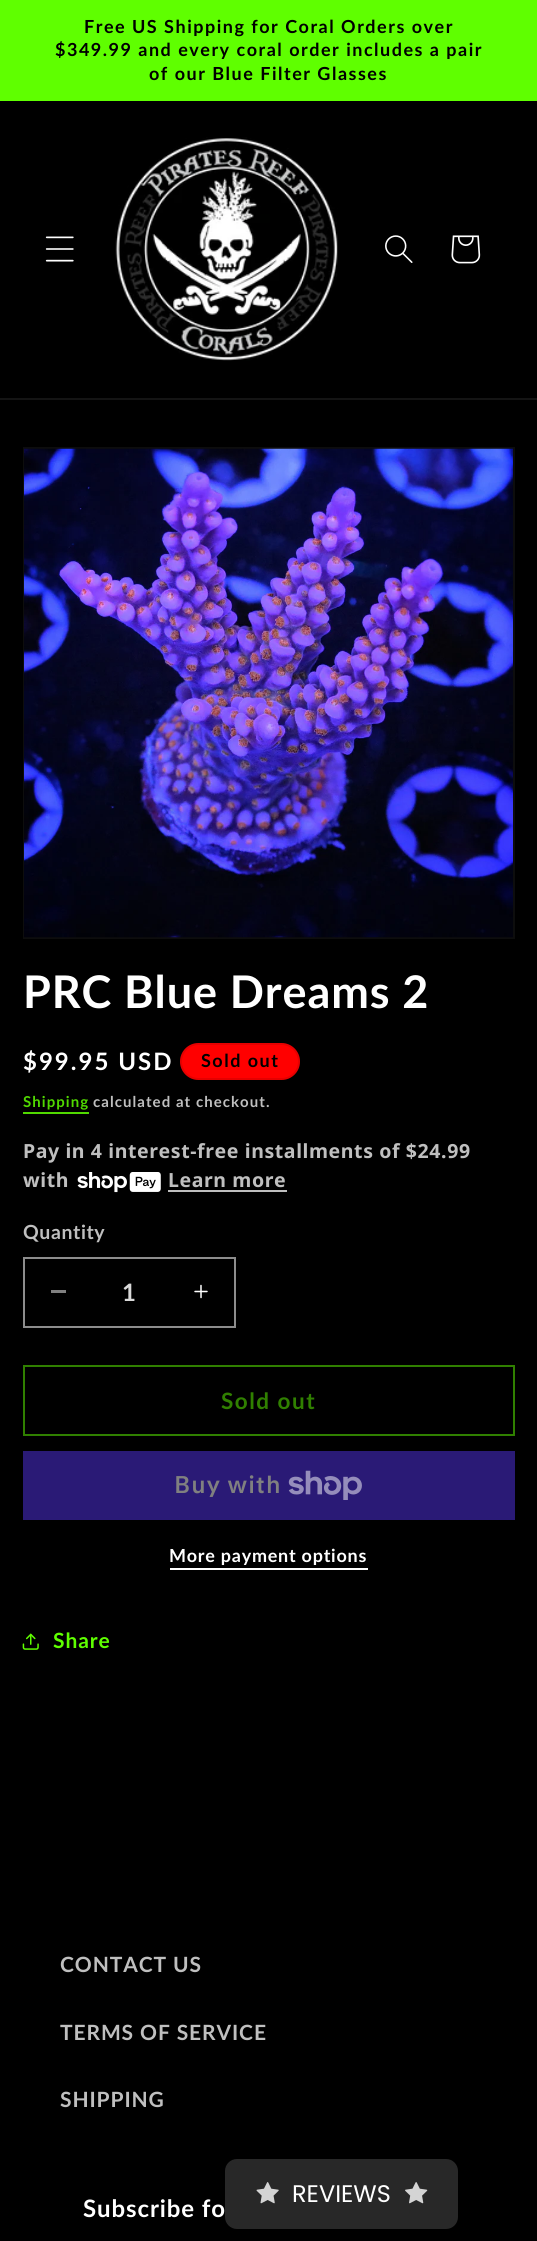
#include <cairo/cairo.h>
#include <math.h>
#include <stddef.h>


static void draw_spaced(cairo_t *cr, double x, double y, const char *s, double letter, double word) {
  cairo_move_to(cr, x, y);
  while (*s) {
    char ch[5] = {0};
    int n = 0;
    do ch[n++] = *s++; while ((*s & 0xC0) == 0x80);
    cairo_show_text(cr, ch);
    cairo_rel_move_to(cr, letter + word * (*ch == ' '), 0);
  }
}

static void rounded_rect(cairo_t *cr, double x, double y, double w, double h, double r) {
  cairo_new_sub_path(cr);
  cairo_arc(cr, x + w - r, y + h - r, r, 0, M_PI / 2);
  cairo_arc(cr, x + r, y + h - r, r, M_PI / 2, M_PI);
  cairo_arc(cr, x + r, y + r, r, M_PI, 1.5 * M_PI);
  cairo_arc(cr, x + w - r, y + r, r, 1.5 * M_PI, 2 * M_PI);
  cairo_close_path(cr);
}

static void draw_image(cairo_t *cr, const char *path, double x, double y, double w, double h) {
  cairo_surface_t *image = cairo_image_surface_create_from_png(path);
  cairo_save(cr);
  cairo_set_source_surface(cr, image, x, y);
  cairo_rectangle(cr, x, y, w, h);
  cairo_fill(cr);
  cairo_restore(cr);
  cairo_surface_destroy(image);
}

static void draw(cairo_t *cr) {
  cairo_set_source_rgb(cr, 0, 0, 0);
  cairo_paint(cr);
  cairo_set_source_rgb(cr, 95 / 255.0, 1, 0);
  cairo_rectangle(cr, 0, 0, 537, 101);
  cairo_fill(cr);
  cairo_set_source_rgb(cr, 20 / 255.0, 20 / 255.0, 20 / 255.0);
  cairo_rectangle(cr, 0, 398, 537, 2);
  cairo_fill(cr);
  draw_image(cr, "images/1.png", 45, 236, 29, 26);
  draw_image(cr, "images/2.png", 115, 137, 223, 224);
  draw_image(cr, "images/3.png", 385, 235, 28, 28);
  draw_image(cr, "images/4.png", 451, 235, 30, 29);
  cairo_rectangle(cr, 24, 448, 490, 490);
  cairo_set_source_rgb(cr, 13 / 255.0, 13 / 255.0, 13 / 255.0);
  cairo_stroke(cr);
  draw_image(cr, "images/5.png", 24, 448, 489, 490);
  cairo_set_source_rgb(cr, 1, 0, 0);
  rounded_rect(cr, 180, 1043, 120, 37, 18.5);
  cairo_fill(cr);
  rounded_rect(cr, 181, 1044, 118, 35, 17.5);
  cairo_set_source_rgba(cr, 0, 0, 0, 0.1);
  cairo_stroke(cr);
  cairo_set_source_rgb(cr, 81 / 255.0, 217 / 255.0, 0);
  cairo_rectangle(cr, 23, 1112, 66, 2);
  cairo_fill(cr);
  draw_image(cr, "images/6.png", 77, 1172, 84, 21);
  cairo_set_source_rgb(cr, 191 / 255.0, 191 / 255.0, 191 / 255.0);
  cairo_rectangle(cr, 168, 1190, 119, 2);
  cairo_fill(cr);
  cairo_set_source_rgb(cr, 128 / 255.0, 128 / 255.0, 128 / 255.0);
  cairo_rectangle(cr, 51, 1290, 15, 3);
  cairo_fill(cr);
  draw_image(cr, "images/7.png", 194, 1284, 14, 15);
  cairo_rectangle(cr, 24, 1258, 211, 69);
  cairo_set_source_rgb(cr, 140 / 255.0, 140 / 255.0, 140 / 255.0);
  cairo_stroke(cr);
  cairo_rectangle(cr, 24, 1366, 490, 69);
  cairo_set_source_rgb(cr, 48 / 255.0, 128 / 255.0, 0);
  cairo_stroke(cr);
  cairo_set_source_rgb(cr, 42 / 255.0, 26 / 255.0, 118 / 255.0);
  cairo_rectangle(cr, 23, 1451, 492, 69);
  cairo_fill(cr);
  draw_image(cr, "images/8.png", 288, 1470, 74, 30);
  cairo_set_source_rgb(cr, 1, 1, 1);
  cairo_rectangle(cr, 170, 1568, 198, 2);
  cairo_fill(cr);
  draw_image(cr, "images/9.png", 22, 1633, 17, 17);
  cairo_set_source_rgb(cr, 40 / 255.0, 40 / 255.0, 40 / 255.0);
  rounded_rect(cr, 225, 2159, 233, 70, 12);
  cairo_fill(cr);
  draw_image(cr, "images/10.png", 256, 2182, 23, 22);
  draw_image(cr, "images/11.png", 405, 2182, 23, 22);
  cairo_select_font_face(cr, "Lato", CAIRO_FONT_SLANT_NORMAL, CAIRO_FONT_WEIGHT_BOLD);
  cairo_set_font_size(cr, 18);
  cairo_set_source_rgb(cr, 0, 0, 0);
  draw_spaced(cr, 84, 33, "Free US Shipping for Coral Orders over", 1.5, 0);
  draw_spaced(cr, 55, 56, "$349.99 and every coral order includes a pair", 1.5, 0);
  draw_spaced(cr, 149, 80, "of our Blue Filter Glasses", 1.5, 0);
  cairo_set_font_size(cr, 45);
  cairo_set_source_rgb(cr, 1, 1, 1);
  draw_spaced(cr, 23, 1008, "PRC Blue Dreams 2", 0.9, 0);
  cairo_set_font_size(cr, 24);
  draw_spaced(cr, 23, 1070, "$99.95 USD", 2, 0);
  cairo_set_font_size(cr, 18);
  cairo_set_source_rgb(cr, 0, 0, 0);
  draw_spaced(cr, 201, 1067, "Sold out", 1.5, 0);
  cairo_set_font_size(cr, 15);
  cairo_set_source_rgb(cr, 81 / 255.0, 217 / 255.0, 0);
  draw_spaced(cr, 23, 1107, "Shipping", 1.05, 0);
  cairo_set_source_rgb(cr, 191 / 255.0, 191 / 255.0, 191 / 255.0);
  draw_spaced(cr, 93, 1107, "calculated at checkout.", 1.05, 0);
  cairo_select_font_face(cr, "Noto Sans", CAIRO_FONT_SLANT_NORMAL, CAIRO_FONT_WEIGHT_BOLD);
  cairo_set_font_size(cr, 19.5);
  draw_spaced(cr, 23, 1158, "Pay in 4 interest-free installments of $24.99", 0.6, 0);
  draw_spaced(cr, 23, 1187, "with", 0.6, 0);
  draw_spaced(cr, 168, 1187, "Learn more", 0.6, 0);
  cairo_select_font_face(cr, "Lato", CAIRO_FONT_SLANT_NORMAL, CAIRO_FONT_WEIGHT_BOLD);
  draw_spaced(cr, 23, 1239, "Quantity", 0.6, 0);
  cairo_set_font_size(cr, 24);
  cairo_set_source_rgb(cr, 217 / 255.0, 217 / 255.0, 217 / 255.0);
  cairo_move_to(cr, 122, 1301);
  cairo_show_text(cr, "1");
  cairo_set_font_size(cr, 22.5);
  cairo_set_source_rgb(cr, 48 / 255.0, 128 / 255.0, 0);
  draw_spaced(cr, 221, 1409, "Sold out", 1.5, 0);
  cairo_select_font_face(cr, "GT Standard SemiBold", CAIRO_FONT_SLANT_NORMAL, CAIRO_FONT_WEIGHT_NORMAL);
  cairo_set_font_size(cr, 24);
  cairo_set_source_rgb(cr, 128 / 255.0, 128 / 255.0, 128 / 255.0);
  draw_spaced(cr, 174, 1493, "Buy with", 0.9, 0);
  cairo_select_font_face(cr, "Lato", CAIRO_FONT_SLANT_NORMAL, CAIRO_FONT_WEIGHT_BOLD);
  cairo_set_font_size(cr, 18);
  cairo_set_source_rgb(cr, 1, 1, 1);
  draw_spaced(cr, 169, 1562, "More payment options", 0.75, 0);
  cairo_set_font_size(cr, 21);
  cairo_set_source_rgb(cr, 95 / 255.0, 1, 0);
  draw_spaced(cr, 53, 1648, "Share", 0.9, 0);
  cairo_set_source_rgb(cr, 191 / 255.0, 191 / 255.0, 191 / 255.0);
  draw_spaced(cr, 60, 1972, "CONTACT US", 0.9, 0);
  draw_spaced(cr, 60, 2040, "TERMS OF SERVICE", 0.9, 0);
  draw_spaced(cr, 60, 2107, "SHIPPING", 0.9, 0);
  cairo_set_font_size(cr, 24);
  cairo_set_source_rgb(cr, 1, 1, 1);
  draw_spaced(cr, 83, 2217, "Subscribe fo", 0.9, 0);
  cairo_select_font_face(cr, "Poppins", CAIRO_FONT_SLANT_NORMAL, CAIRO_FONT_WEIGHT_NORMAL);
  cairo_move_to(cr, 292, 2202);
  cairo_show_text(cr, "REVIEWS");
}

int main(void) {
  cairo_surface_t *surface = cairo_image_surface_create(CAIRO_FORMAT_RGB24, 537, 2241);
  cairo_t *cr = cairo_create(surface);
  cairo_font_options_t *options = cairo_font_options_create();
  cairo_font_options_set_hint_metrics(options, CAIRO_HINT_METRICS_OFF);
  cairo_font_options_set_hint_style(options, CAIRO_HINT_STYLE_NONE);
  cairo_set_font_options(cr, options);
  cairo_set_miter_limit(cr, 4);
  draw(cr);
  cairo_surface_write_to_png(surface, "out.png");
  cairo_font_options_destroy(options);
  cairo_destroy(cr);
  cairo_surface_destroy(surface);
  return 0;
}
